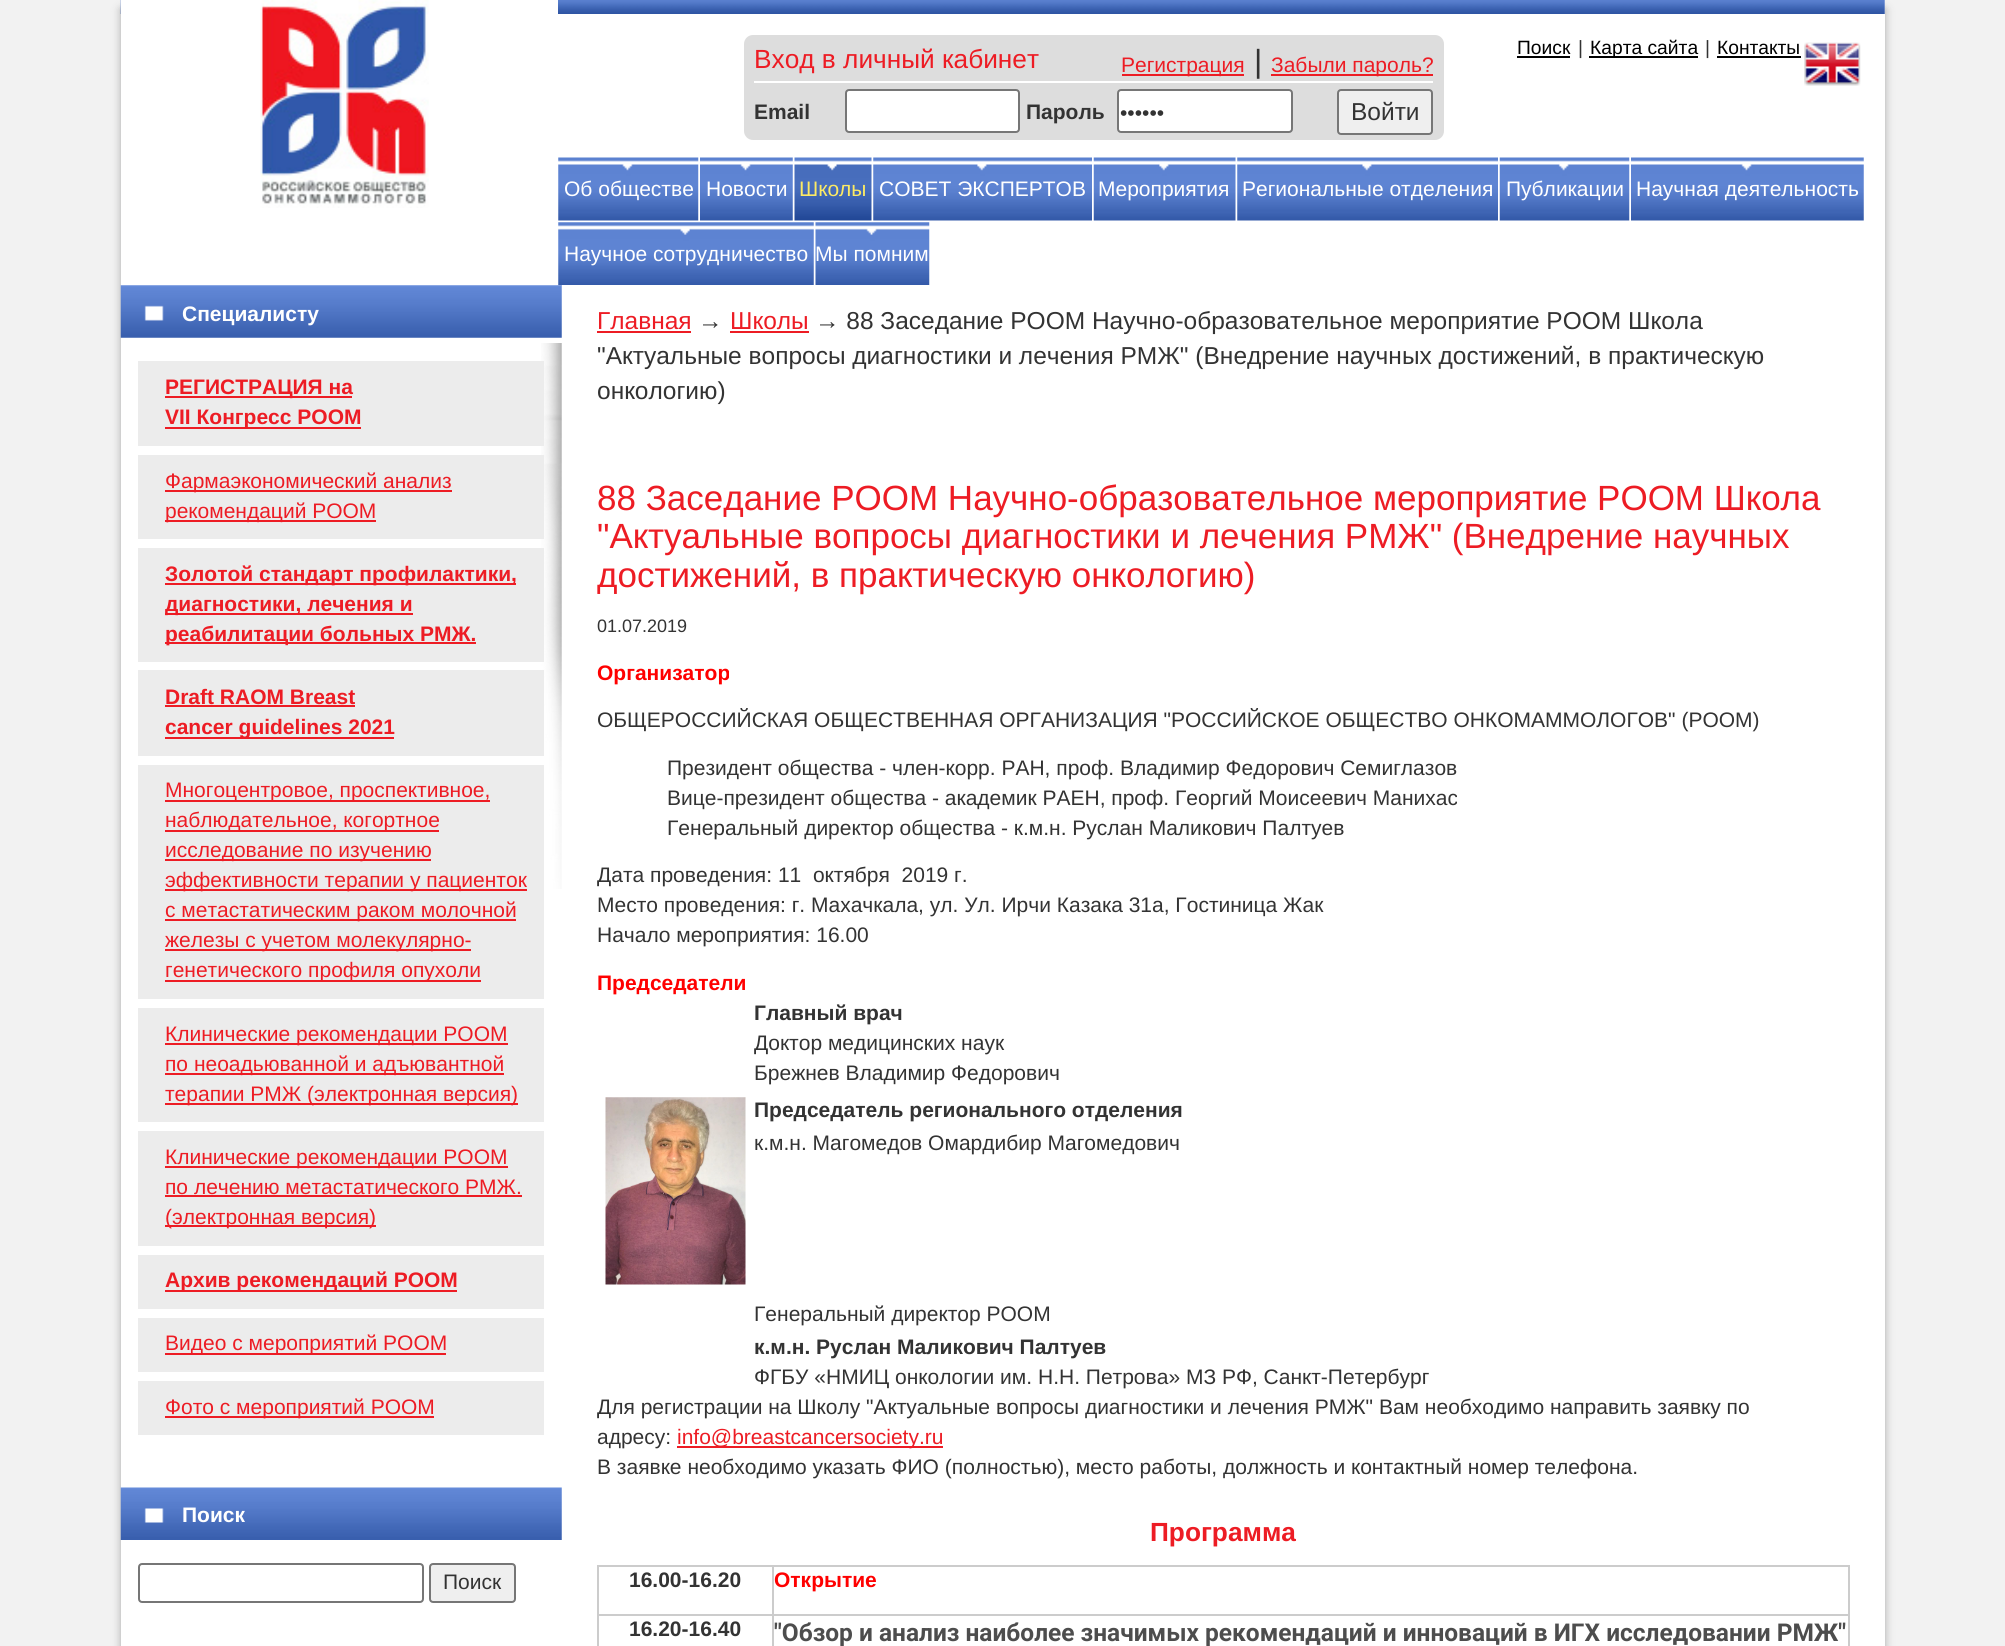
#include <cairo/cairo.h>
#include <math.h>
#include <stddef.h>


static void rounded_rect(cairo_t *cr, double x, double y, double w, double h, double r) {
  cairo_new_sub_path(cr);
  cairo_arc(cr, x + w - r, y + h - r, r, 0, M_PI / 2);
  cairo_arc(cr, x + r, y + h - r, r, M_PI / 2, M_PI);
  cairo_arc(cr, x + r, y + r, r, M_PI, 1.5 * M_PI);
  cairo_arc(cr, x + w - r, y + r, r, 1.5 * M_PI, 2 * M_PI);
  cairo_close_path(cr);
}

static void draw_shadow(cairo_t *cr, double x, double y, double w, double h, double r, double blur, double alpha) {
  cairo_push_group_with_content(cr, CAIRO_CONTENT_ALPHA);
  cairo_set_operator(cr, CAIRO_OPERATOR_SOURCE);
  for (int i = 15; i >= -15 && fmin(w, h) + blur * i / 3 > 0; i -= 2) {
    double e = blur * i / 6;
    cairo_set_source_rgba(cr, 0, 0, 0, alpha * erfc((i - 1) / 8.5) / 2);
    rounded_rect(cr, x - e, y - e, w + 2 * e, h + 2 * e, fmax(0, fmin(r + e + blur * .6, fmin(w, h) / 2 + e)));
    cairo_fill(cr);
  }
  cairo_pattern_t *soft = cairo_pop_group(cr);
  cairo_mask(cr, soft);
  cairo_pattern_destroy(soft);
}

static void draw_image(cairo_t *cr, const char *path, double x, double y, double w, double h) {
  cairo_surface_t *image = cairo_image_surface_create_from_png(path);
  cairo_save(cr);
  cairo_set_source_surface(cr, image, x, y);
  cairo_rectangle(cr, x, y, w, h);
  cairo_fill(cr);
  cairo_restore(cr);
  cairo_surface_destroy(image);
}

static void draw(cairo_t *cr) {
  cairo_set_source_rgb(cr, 242 / 255.0, 242 / 255.0, 242 / 255.0);
  cairo_paint(cr);
  cairo_set_source_rgb(cr, 170 / 255.0, 170 / 255.0, 170 / 255.0);
  draw_shadow(cr, 121, 9, 1764, 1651, 0, 4.5, 1);
  cairo_set_source_rgb(cr, 1, 1, 1);
  cairo_rectangle(cr, 121, 0, 1764, 1646);
  cairo_fill(cr);
  draw_image(cr, "images/1.png", 120, 0, 1765, 14);
  cairo_rectangle(cr, 121, 0, 437, 14);
  cairo_fill(cr);
  draw_image(cr, "images/2.png", 260, 0, 169, 208);
  cairo_set_source_rgb(cr, 221 / 255.0, 221 / 255.0, 221 / 255.0);
  rounded_rect(cr, 744, 35, 700, 105, 9);
  cairo_fill(cr);
  cairo_set_source_rgb(cr, 1, 1, 1);
  cairo_rectangle(cr, 754, 81, 679, 2);
  cairo_fill(cr);
  cairo_set_source_rgb(cr, 237 / 255.0, 28 / 255.0, 36 / 255.0);
  cairo_rectangle(cr, 1122, 74, 122, 2);
  cairo_fill(cr);
  cairo_rectangle(cr, 1271, 74, 162, 2);
  cairo_fill(cr);
  cairo_set_source_rgb(cr, 1, 1, 1);
  rounded_rect(cr, 846, 90, 173, 42, 3);
  cairo_fill_preserve(cr);
  cairo_set_source_rgb(cr, 118 / 255.0, 118 / 255.0, 118 / 255.0);
  cairo_stroke(cr);
  cairo_set_source_rgb(cr, 1, 1, 1);
  rounded_rect(cr, 1118, 90, 174, 42, 3);
  cairo_fill_preserve(cr);
  cairo_set_source_rgb(cr, 118 / 255.0, 118 / 255.0, 118 / 255.0);
  cairo_stroke(cr);
  cairo_set_source_rgb(cr, 239 / 255.0, 239 / 255.0, 239 / 255.0);
  rounded_rect(cr, 1338, 90, 94, 44, 3);
  cairo_fill_preserve(cr);
  cairo_set_source_rgb(cr, 118 / 255.0, 118 / 255.0, 118 / 255.0);
  cairo_stroke(cr);
  cairo_set_source_rgb(cr, 0, 0, 0);
  cairo_rectangle(cr, 1517, 56, 53, 2);
  cairo_fill(cr);
  cairo_rectangle(cr, 1589, 56, 109, 2);
  cairo_fill(cr);
  cairo_rectangle(cr, 1717, 56, 84, 2);
  cairo_fill(cr);
  draw_image(cr, "images/3.png", 1804, 42, 57, 44);
  draw_image(cr, "images/4.png", 558, 157, 141, 64);
  draw_image(cr, "images/5.png", 700, 157, 93, 64);
  draw_image(cr, "images/6.png", 794, 157, 78, 64);
  draw_image(cr, "images/7.png", 873, 157, 219, 64);
  draw_image(cr, "images/8.png", 1093, 157, 143, 64);
  draw_image(cr, "images/9.png", 1237, 157, 261, 64);
  draw_image(cr, "images/10.png", 1499, 157, 131, 64);
  draw_image(cr, "images/11.png", 1631, 157, 233, 64);
  draw_image(cr, "images/12.png", 558, 222, 256, 64);
  draw_image(cr, "images/13.png", 815, 222, 115, 63);
  draw_image(cr, "images/14.png", 120, 285, 442, 53);
  draw_image(cr, "images/15.png", 541, 343, 21, 546);
  cairo_set_source_rgb(cr, 236 / 255.0, 236 / 255.0, 236 / 255.0);
  cairo_rectangle(cr, 138, 361, 406, 85);
  cairo_fill(cr);
  cairo_set_source_rgb(cr, 237 / 255.0, 28 / 255.0, 36 / 255.0);
  cairo_rectangle(cr, 165, 396, 187, 2);
  cairo_fill(cr);
  cairo_rectangle(cr, 165, 427, 196, 2);
  cairo_fill(cr);
  cairo_set_source_rgb(cr, 236 / 255.0, 236 / 255.0, 236 / 255.0);
  cairo_rectangle(cr, 138, 455, 406, 84);
  cairo_fill(cr);
  cairo_set_source_rgb(cr, 237 / 255.0, 28 / 255.0, 36 / 255.0);
  cairo_rectangle(cr, 165, 490, 287, 2);
  cairo_fill(cr);
  cairo_rectangle(cr, 165, 520, 211, 2);
  cairo_fill(cr);
  cairo_set_source_rgb(cr, 236 / 255.0, 236 / 255.0, 236 / 255.0);
  cairo_rectangle(cr, 138, 548, 406, 114);
  cairo_fill(cr);
  cairo_set_source_rgb(cr, 237 / 255.0, 28 / 255.0, 36 / 255.0);
  cairo_rectangle(cr, 165, 583, 351, 2);
  cairo_fill(cr);
  cairo_rectangle(cr, 165, 613, 248, 2);
  cairo_fill(cr);
  cairo_rectangle(cr, 165, 642, 311, 2);
  cairo_fill(cr);
  cairo_set_source_rgb(cr, 236 / 255.0, 236 / 255.0, 236 / 255.0);
  cairo_rectangle(cr, 138, 670, 406, 86);
  cairo_fill(cr);
  cairo_set_source_rgb(cr, 237 / 255.0, 28 / 255.0, 36 / 255.0);
  cairo_rectangle(cr, 165, 705, 190, 2);
  cairo_fill(cr);
  cairo_rectangle(cr, 165, 737, 229, 2);
  cairo_fill(cr);
  cairo_set_source_rgb(cr, 236 / 255.0, 236 / 255.0, 236 / 255.0);
  cairo_rectangle(cr, 138, 765, 406, 234);
  cairo_fill(cr);
  cairo_set_source_rgb(cr, 237 / 255.0, 28 / 255.0, 36 / 255.0);
  cairo_rectangle(cr, 165, 800, 325, 2);
  cairo_fill(cr);
  cairo_rectangle(cr, 165, 830, 274, 2);
  cairo_fill(cr);
  cairo_rectangle(cr, 165, 859, 266, 2);
  cairo_fill(cr);
  cairo_rectangle(cr, 165, 889, 362, 2);
  cairo_fill(cr);
  cairo_rectangle(cr, 165, 919, 351, 2);
  cairo_fill(cr);
  cairo_rectangle(cr, 165, 949, 306, 2);
  cairo_fill(cr);
  cairo_rectangle(cr, 165, 980, 316, 2);
  cairo_fill(cr);
  cairo_set_source_rgb(cr, 236 / 255.0, 236 / 255.0, 236 / 255.0);
  cairo_rectangle(cr, 138, 1008, 406, 114);
  cairo_fill(cr);
  cairo_set_source_rgb(cr, 237 / 255.0, 28 / 255.0, 36 / 255.0);
  cairo_rectangle(cr, 165, 1043, 343, 2);
  cairo_fill(cr);
  cairo_rectangle(cr, 165, 1073, 339, 2);
  cairo_fill(cr);
  cairo_rectangle(cr, 165, 1103, 353, 2);
  cairo_fill(cr);
  cairo_set_source_rgb(cr, 236 / 255.0, 236 / 255.0, 236 / 255.0);
  cairo_rectangle(cr, 138, 1131, 406, 115);
  cairo_fill(cr);
  cairo_set_source_rgb(cr, 237 / 255.0, 28 / 255.0, 36 / 255.0);
  cairo_rectangle(cr, 165, 1166, 343, 2);
  cairo_fill(cr);
  cairo_rectangle(cr, 165, 1195, 357, 2);
  cairo_fill(cr);
  cairo_rectangle(cr, 165, 1225, 211, 2);
  cairo_fill(cr);
  cairo_set_source_rgb(cr, 236 / 255.0, 236 / 255.0, 236 / 255.0);
  cairo_rectangle(cr, 138, 1255, 406, 54);
  cairo_fill(cr);
  cairo_set_source_rgb(cr, 237 / 255.0, 28 / 255.0, 36 / 255.0);
  cairo_rectangle(cr, 165, 1290, 292, 2);
  cairo_fill(cr);
  cairo_set_source_rgb(cr, 236 / 255.0, 236 / 255.0, 236 / 255.0);
  cairo_rectangle(cr, 138, 1318, 406, 54);
  cairo_fill(cr);
  cairo_set_source_rgb(cr, 237 / 255.0, 28 / 255.0, 36 / 255.0);
  cairo_rectangle(cr, 165, 1353, 281, 2);
  cairo_fill(cr);
  cairo_set_source_rgb(cr, 236 / 255.0, 236 / 255.0, 236 / 255.0);
  cairo_rectangle(cr, 138, 1381, 406, 54);
  cairo_fill(cr);
  cairo_set_source_rgb(cr, 237 / 255.0, 28 / 255.0, 36 / 255.0);
  cairo_rectangle(cr, 165, 1416, 269, 2);
  cairo_fill(cr);
  draw_image(cr, "images/16.png", 120, 1487, 442, 53);
  rounded_rect(cr, 139, 1564, 284, 38, 3);
  cairo_set_source_rgb(cr, 118 / 255.0, 118 / 255.0, 118 / 255.0);
  cairo_stroke(cr);
  cairo_set_source_rgb(cr, 239 / 255.0, 239 / 255.0, 239 / 255.0);
  rounded_rect(cr, 430, 1564, 85, 38, 3);
  cairo_fill_preserve(cr);
  cairo_set_source_rgb(cr, 118 / 255.0, 118 / 255.0, 118 / 255.0);
  cairo_stroke(cr);
  cairo_set_source_rgb(cr, 1, 1, 1);
  cairo_rectangle(cr, 562, 285, 252, 1);
  cairo_fill(cr);
  cairo_set_source_rgb(cr, 237 / 255.0, 28 / 255.0, 36 / 255.0);
  cairo_rectangle(cr, 597, 331, 94, 2);
  cairo_fill(cr);
  cairo_rectangle(cr, 730, 331, 79, 2);
  cairo_fill(cr);
  draw_image(cr, "images/17.png", 605, 1097, 141, 188);
  cairo_rectangle(cr, 677, 1446, 266, 2);
  cairo_fill(cr);
  cairo_set_source_rgb(cr, 204 / 255.0, 204 / 255.0, 204 / 255.0);
  cairo_rectangle(cr, 597, 1565, 1253, 2);
  cairo_fill(cr);
  cairo_rectangle(cr, 1848, 1565, 2, 81);
  cairo_fill(cr);
  cairo_rectangle(cr, 597, 1565, 2, 81);
  cairo_fill(cr);
  cairo_rectangle(cr, 772, 1614, 1078, 2);
  cairo_fill(cr);
  cairo_rectangle(cr, 772, 1614, 2, 32);
  cairo_fill(cr);
  cairo_rectangle(cr, 597, 1614, 177, 2);
  cairo_fill(cr);
  cairo_rectangle(cr, 772, 1565, 2, 50);
  cairo_fill(cr);
  cairo_select_font_face(cr, "Liberation Sans", CAIRO_FONT_SLANT_NORMAL, CAIRO_FONT_WEIGHT_NORMAL);
  cairo_set_font_size(cr, 26.25);
  cairo_set_source_rgb(cr, 237 / 255.0, 28 / 255.0, 36 / 255.0);
  cairo_move_to(cr, 754, 68);
  cairo_show_text(cr, "Вход в личный кабинет");
  cairo_set_font_size(cr, 21);
  cairo_move_to(cr, 1121, 72);
  cairo_show_text(cr, "Регистрация");
  cairo_set_font_size(cr, 32);
  cairo_set_source_rgb(cr, 51 / 255.0, 51 / 255.0, 51 / 255.0);
  cairo_move_to(cr, 1254, 72);
  cairo_show_text(cr, "|");
  cairo_set_font_size(cr, 21);
  cairo_set_source_rgb(cr, 237 / 255.0, 28 / 255.0, 36 / 255.0);
  cairo_move_to(cr, 1271, 72);
  cairo_show_text(cr, "Забыли пароль?");
  cairo_select_font_face(cr, "Liberation Sans", CAIRO_FONT_SLANT_NORMAL, CAIRO_FONT_WEIGHT_BOLD);
  cairo_set_source_rgb(cr, 51 / 255.0, 51 / 255.0, 51 / 255.0);
  cairo_move_to(cr, 754, 119);
  cairo_show_text(cr, "Email");
  cairo_move_to(cr, 1026, 119);
  cairo_show_text(cr, "Пароль");
  cairo_select_font_face(cr, "Liberation Sans", CAIRO_FONT_SLANT_NORMAL, CAIRO_FONT_WEIGHT_NORMAL);
  cairo_move_to(cr, 1120, 120);
  cairo_show_text(cr, "••••••");
  cairo_set_font_size(cr, 24.5);
  cairo_move_to(cr, 1351, 120);
  cairo_show_text(cr, "Войти");
  cairo_set_font_size(cr, 19.25);
  cairo_set_source_rgb(cr, 0, 0, 0);
  cairo_move_to(cr, 1517, 54);
  cairo_show_text(cr, "Поиск");
  cairo_set_source_rgb(cr, 51 / 255.0, 51 / 255.0, 51 / 255.0);
  cairo_move_to(cr, 1578, 54);
  cairo_show_text(cr, "|");
  cairo_set_source_rgb(cr, 0, 0, 0);
  cairo_move_to(cr, 1590, 54);
  cairo_show_text(cr, "Карта сайта");
  cairo_set_source_rgb(cr, 51 / 255.0, 51 / 255.0, 51 / 255.0);
  cairo_move_to(cr, 1705, 54);
  cairo_show_text(cr, "|");
  cairo_set_source_rgb(cr, 0, 0, 0);
  cairo_move_to(cr, 1717, 54);
  cairo_show_text(cr, "Контакты");
  cairo_set_font_size(cr, 21);
  cairo_set_source_rgb(cr, 1, 1, 1);
  cairo_move_to(cr, 564, 196);
  cairo_show_text(cr, "Об обществе");
  cairo_move_to(cr, 706, 196);
  cairo_show_text(cr, "Новости");
  cairo_set_source_rgb(cr, 252 / 255.0, 234 / 255.0, 100 / 255.0);
  cairo_move_to(cr, 799, 196);
  cairo_show_text(cr, "Школы");
  cairo_set_source_rgb(cr, 1, 1, 1);
  cairo_move_to(cr, 879, 196);
  cairo_show_text(cr, "СОВЕТ ЭКСПЕРТОВ");
  cairo_move_to(cr, 1098, 196);
  cairo_show_text(cr, "Мероприятия");
  cairo_move_to(cr, 1242, 196);
  cairo_show_text(cr, "Региональные отделения");
  cairo_move_to(cr, 1506, 196);
  cairo_show_text(cr, "Публикации");
  cairo_move_to(cr, 1636, 196);
  cairo_show_text(cr, "Научная деятельность");
  cairo_move_to(cr, 564, 261);
  cairo_show_text(cr, "Научное сотрудничество");
  cairo_move_to(cr, 815, 261);
  cairo_show_text(cr, "Мы помним");
  cairo_select_font_face(cr, "Liberation Sans", CAIRO_FONT_SLANT_NORMAL, CAIRO_FONT_WEIGHT_BOLD);
  cairo_move_to(cr, 182, 321);
  cairo_show_text(cr, "Специалисту");
  cairo_set_source_rgb(cr, 237 / 255.0, 28 / 255.0, 36 / 255.0);
  cairo_move_to(cr, 165, 394);
  cairo_show_text(cr, "РЕГИСТРАЦИЯ на");
  cairo_move_to(cr, 165, 424);
  cairo_show_text(cr, "VII Конгресс РООМ");
  cairo_select_font_face(cr, "Liberation Sans", CAIRO_FONT_SLANT_NORMAL, CAIRO_FONT_WEIGHT_NORMAL);
  cairo_move_to(cr, 165, 488);
  cairo_show_text(cr, "Фармаэкономический анализ");
  cairo_move_to(cr, 165, 518);
  cairo_show_text(cr, "рекомендаций РООМ");
  cairo_select_font_face(cr, "Liberation Sans", CAIRO_FONT_SLANT_NORMAL, CAIRO_FONT_WEIGHT_BOLD);
  cairo_move_to(cr, 165, 581);
  cairo_show_text(cr, "Золотой стандарт профилактики,");
  cairo_move_to(cr, 165, 611);
  cairo_show_text(cr, "диагностики, лечения и");
  cairo_move_to(cr, 165, 641);
  cairo_show_text(cr, "реабилитации больных РМЖ.");
  cairo_move_to(cr, 165, 704);
  cairo_show_text(cr, "Draft RAOM Breast");
  cairo_move_to(cr, 165, 734);
  cairo_show_text(cr, "cancer guidelines 2021");
  cairo_select_font_face(cr, "Liberation Sans", CAIRO_FONT_SLANT_NORMAL, CAIRO_FONT_WEIGHT_NORMAL);
  cairo_move_to(cr, 165, 797);
  cairo_show_text(cr, "Многоцентровое, проспективное,");
  cairo_move_to(cr, 165, 827);
  cairo_show_text(cr, "наблюдательное, когортное");
  cairo_move_to(cr, 165, 857);
  cairo_show_text(cr, "исследование по изучению");
  cairo_move_to(cr, 165, 887);
  cairo_show_text(cr, "эффективности терапии у пациенток");
  cairo_move_to(cr, 165, 917);
  cairo_show_text(cr, "с метастатическим раком молочной");
  cairo_move_to(cr, 165, 947);
  cairo_show_text(cr, "железы с учетом молекулярно-");
  cairo_move_to(cr, 165, 977);
  cairo_show_text(cr, "генетического профиля опухоли");
  cairo_move_to(cr, 165, 1041);
  cairo_show_text(cr, "Клинические рекомендации РООМ");
  cairo_move_to(cr, 165, 1071);
  cairo_show_text(cr, "по неоадьюванной и адъювантной");
  cairo_move_to(cr, 165, 1101);
  cairo_show_text(cr, "терапии РМЖ (электронная версия)");
  cairo_move_to(cr, 165, 1164);
  cairo_show_text(cr, "Клинические рекомендации РООМ");
  cairo_move_to(cr, 165, 1194);
  cairo_show_text(cr, "по лечению метастатического РМЖ.");
  cairo_move_to(cr, 165, 1224);
  cairo_show_text(cr, "(электронная версия)");
  cairo_select_font_face(cr, "Liberation Sans", CAIRO_FONT_SLANT_NORMAL, CAIRO_FONT_WEIGHT_BOLD);
  cairo_move_to(cr, 165, 1287);
  cairo_show_text(cr, "Архив рекомендаций РООМ");
  cairo_select_font_face(cr, "Liberation Sans", CAIRO_FONT_SLANT_NORMAL, CAIRO_FONT_WEIGHT_NORMAL);
  cairo_move_to(cr, 165, 1350);
  cairo_show_text(cr, "Видео с мероприятий РООМ");
  cairo_move_to(cr, 165, 1414);
  cairo_show_text(cr, "Фото с мероприятий РООМ");
  cairo_select_font_face(cr, "Liberation Sans", CAIRO_FONT_SLANT_NORMAL, CAIRO_FONT_WEIGHT_BOLD);
  cairo_set_source_rgb(cr, 1, 1, 1);
  cairo_move_to(cr, 182, 1522);
  cairo_show_text(cr, "Поиск");
  cairo_select_font_face(cr, "Liberation Sans", CAIRO_FONT_SLANT_NORMAL, CAIRO_FONT_WEIGHT_NORMAL);
  cairo_set_source_rgb(cr, 51 / 255.0, 51 / 255.0, 51 / 255.0);
  cairo_move_to(cr, 443, 1589);
  cairo_show_text(cr, "Поиск");
  cairo_set_font_size(cr, 24.5);
  cairo_set_source_rgb(cr, 237 / 255.0, 28 / 255.0, 36 / 255.0);
  cairo_move_to(cr, 597, 329);
  cairo_show_text(cr, "Главная");
  cairo_set_source_rgb(cr, 51 / 255.0, 51 / 255.0, 51 / 255.0);
  cairo_move_to(cr, 698, 329);
  cairo_show_text(cr, "→");
  cairo_set_source_rgb(cr, 237 / 255.0, 28 / 255.0, 36 / 255.0);
  cairo_move_to(cr, 730, 329);
  cairo_show_text(cr, "Школы");
  cairo_set_source_rgb(cr, 51 / 255.0, 51 / 255.0, 51 / 255.0);
  cairo_move_to(cr, 815, 329);
  cairo_show_text(cr, "→ 88 Заседание РООМ Научно-образовательное мероприятие РООМ Школа");
  cairo_move_to(cr, 597, 364);
  cairo_show_text(cr, "\"Актуальные вопросы диагностики и лечения РМЖ\" (Внедрение научных достижений, в практическую");
  cairo_move_to(cr, 597, 399);
  cairo_show_text(cr, "онкологию)");
  cairo_set_font_size(cr, 35);
  cairo_set_source_rgb(cr, 237 / 255.0, 28 / 255.0, 36 / 255.0);
  cairo_move_to(cr, 597, 510);
  cairo_show_text(cr, "88 Заседание РООМ Научно-образовательное мероприятие РООМ Школа");
  cairo_move_to(cr, 597, 548);
  cairo_show_text(cr, "\"Актуальные вопросы диагностики и лечения РМЖ\" (Внедрение научных");
  cairo_move_to(cr, 597, 587);
  cairo_show_text(cr, "достижений, в практическую онкологию)");
  cairo_set_font_size(cr, 18);
  cairo_set_source_rgb(cr, 51 / 255.0, 51 / 255.0, 51 / 255.0);
  cairo_move_to(cr, 597, 632);
  cairo_show_text(cr, "01.07.2019");
  cairo_select_font_face(cr, "Liberation Sans", CAIRO_FONT_SLANT_NORMAL, CAIRO_FONT_WEIGHT_BOLD);
  cairo_set_font_size(cr, 21);
  cairo_set_source_rgb(cr, 1, 0, 0);
  cairo_move_to(cr, 597, 680);
  cairo_show_text(cr, "Организатор");
  cairo_select_font_face(cr, "Liberation Sans", CAIRO_FONT_SLANT_NORMAL, CAIRO_FONT_WEIGHT_NORMAL);
  cairo_set_source_rgb(cr, 51 / 255.0, 51 / 255.0, 51 / 255.0);
  cairo_move_to(cr, 597, 727);
  cairo_show_text(cr, "ОБЩЕРОССИЙСКАЯ ОБЩЕСТВЕННАЯ ОРГАНИЗАЦИЯ \"РОССИЙСКОЕ ОБЩЕСТВО ОНКОМАММОЛОГОВ\" (РООМ)");
  cairo_move_to(cr, 667, 775);
  cairo_show_text(cr, "Президент общества - член-корр. РАН, проф. Владимир Федорович Семиглазов");
  cairo_move_to(cr, 667, 805);
  cairo_show_text(cr, "Вице-президент общества - академик РАЕН, проф. Георгий Моисеевич Манихас");
  cairo_move_to(cr, 667, 835);
  cairo_show_text(cr, "Генеральный директор общества - к.м.н. Руслан Маликович Палтуев");
  cairo_move_to(cr, 597, 882);
  cairo_show_text(cr, "Дата проведения: 11  октября  2019 г.");
  cairo_move_to(cr, 597, 912);
  cairo_show_text(cr, "Место проведения: г. Махачкала, ул. Ул. Ирчи Казака 31а, Гостиница Жак");
  cairo_move_to(cr, 597, 942);
  cairo_show_text(cr, "Начало мероприятия: 16.00");
  cairo_select_font_face(cr, "Liberation Sans", CAIRO_FONT_SLANT_NORMAL, CAIRO_FONT_WEIGHT_BOLD);
  cairo_set_source_rgb(cr, 1, 0, 0);
  cairo_move_to(cr, 597, 990);
  cairo_show_text(cr, "Председатели");
  cairo_set_source_rgb(cr, 51 / 255.0, 51 / 255.0, 51 / 255.0);
  cairo_move_to(cr, 754, 1020);
  cairo_show_text(cr, "Главный врач");
  cairo_select_font_face(cr, "Liberation Sans", CAIRO_FONT_SLANT_NORMAL, CAIRO_FONT_WEIGHT_NORMAL);
  cairo_move_to(cr, 754, 1050);
  cairo_show_text(cr, "Доктор медицинских наук");
  cairo_move_to(cr, 754, 1080);
  cairo_show_text(cr, "Брежнев Владимир Федорович");
  cairo_select_font_face(cr, "Liberation Sans", CAIRO_FONT_SLANT_NORMAL, CAIRO_FONT_WEIGHT_BOLD);
  cairo_move_to(cr, 754, 1117);
  cairo_show_text(cr, "Председатель регионального отделения");
  cairo_select_font_face(cr, "Liberation Sans", CAIRO_FONT_SLANT_NORMAL, CAIRO_FONT_WEIGHT_NORMAL);
  cairo_move_to(cr, 754, 1150);
  cairo_show_text(cr, "к.м.н. Магомедов Омардибир Магомедович");
  cairo_move_to(cr, 754, 1321);
  cairo_show_text(cr, "Генеральный директор РООМ");
  cairo_select_font_face(cr, "Liberation Sans", CAIRO_FONT_SLANT_NORMAL, CAIRO_FONT_WEIGHT_BOLD);
  cairo_move_to(cr, 754, 1354);
  cairo_show_text(cr, "к.м.н. Руслан Маликович Палтуев");
  cairo_select_font_face(cr, "Liberation Sans", CAIRO_FONT_SLANT_NORMAL, CAIRO_FONT_WEIGHT_NORMAL);
  cairo_move_to(cr, 754, 1384);
  cairo_show_text(cr, "ФГБУ «НМИЦ онкологии им. Н.Н. Петрова» МЗ РФ, Санкт-Петербург");
  cairo_move_to(cr, 597, 1414);
  cairo_show_text(cr, "Для регистрации на Школу \"Актуальные вопросы диагностики и лечения РМЖ\" Вам необходимо направить заявку по");
  cairo_move_to(cr, 597, 1444);
  cairo_show_text(cr, "адресу:");
  cairo_set_source_rgb(cr, 237 / 255.0, 28 / 255.0, 36 / 255.0);
  cairo_move_to(cr, 677, 1444);
  cairo_show_text(cr, "info@breastcancersociety.ru");
  cairo_set_source_rgb(cr, 51 / 255.0, 51 / 255.0, 51 / 255.0);
  cairo_move_to(cr, 597, 1474);
  cairo_show_text(cr, "В заявке необходимо указать ФИО (полностью), место работы, должность и контактный номер телефона.");
  cairo_select_font_face(cr, "Liberation Sans", CAIRO_FONT_SLANT_NORMAL, CAIRO_FONT_WEIGHT_BOLD);
  cairo_set_font_size(cr, 26.25);
  cairo_set_source_rgb(cr, 237 / 255.0, 28 / 255.0, 36 / 255.0);
  cairo_move_to(cr, 1150, 1541);
  cairo_show_text(cr, "Программа");
  cairo_set_font_size(cr, 21);
  cairo_set_source_rgb(cr, 51 / 255.0, 51 / 255.0, 51 / 255.0);
  cairo_move_to(cr, 629, 1587);
  cairo_show_text(cr, "16.00-16.20");
  cairo_set_source_rgb(cr, 1, 0, 0);
  cairo_move_to(cr, 774, 1587);
  cairo_show_text(cr, "Открытие");
  cairo_set_source_rgb(cr, 51 / 255.0, 51 / 255.0, 51 / 255.0);
  cairo_move_to(cr, 629, 1636);
  cairo_show_text(cr, "16.20-16.40");
  cairo_select_font_face(cr, "Roboto", CAIRO_FONT_SLANT_NORMAL, CAIRO_FONT_WEIGHT_BOLD);
  cairo_set_font_size(cr, 24.5);
  cairo_set_source_rgb(cr, 77 / 255.0, 77 / 255.0, 77 / 255.0);
  cairo_move_to(cr, 774, 1641);
  cairo_show_text(cr, "\"Обзор и анализ наиболее значимых рекомендаций и инноваций в ИГХ исследовании РМЖ\"");
}

int main(void) {
  cairo_surface_t *surface = cairo_image_surface_create(CAIRO_FORMAT_RGB24, 2005, 1646);
  cairo_t *cr = cairo_create(surface);
  cairo_font_options_t *options = cairo_font_options_create();
  cairo_font_options_set_hint_metrics(options, CAIRO_HINT_METRICS_OFF);
  cairo_font_options_set_hint_style(options, CAIRO_HINT_STYLE_NONE);
  cairo_set_font_options(cr, options);
  cairo_set_miter_limit(cr, 4);
  draw(cr);
  cairo_surface_write_to_png(surface, "out.png");
  cairo_font_options_destroy(options);
  cairo_destroy(cr);
  cairo_surface_destroy(surface);
  return 0;
}
